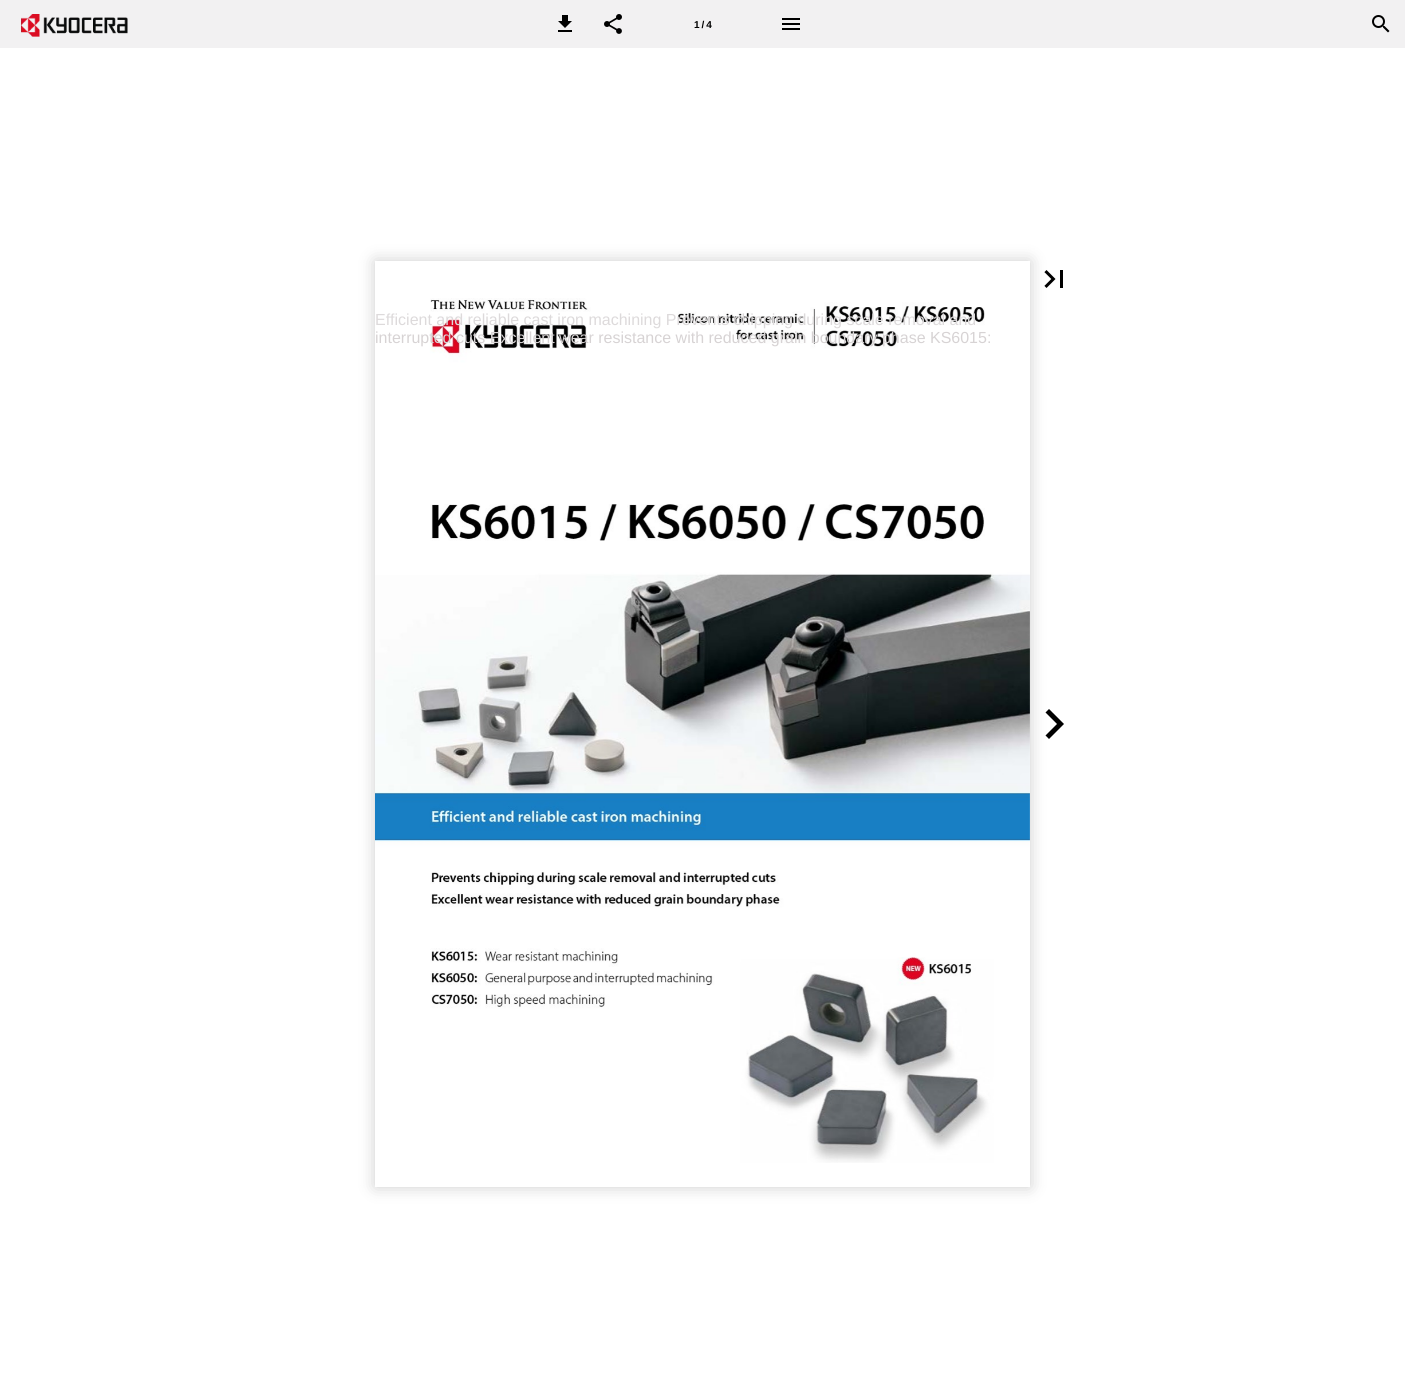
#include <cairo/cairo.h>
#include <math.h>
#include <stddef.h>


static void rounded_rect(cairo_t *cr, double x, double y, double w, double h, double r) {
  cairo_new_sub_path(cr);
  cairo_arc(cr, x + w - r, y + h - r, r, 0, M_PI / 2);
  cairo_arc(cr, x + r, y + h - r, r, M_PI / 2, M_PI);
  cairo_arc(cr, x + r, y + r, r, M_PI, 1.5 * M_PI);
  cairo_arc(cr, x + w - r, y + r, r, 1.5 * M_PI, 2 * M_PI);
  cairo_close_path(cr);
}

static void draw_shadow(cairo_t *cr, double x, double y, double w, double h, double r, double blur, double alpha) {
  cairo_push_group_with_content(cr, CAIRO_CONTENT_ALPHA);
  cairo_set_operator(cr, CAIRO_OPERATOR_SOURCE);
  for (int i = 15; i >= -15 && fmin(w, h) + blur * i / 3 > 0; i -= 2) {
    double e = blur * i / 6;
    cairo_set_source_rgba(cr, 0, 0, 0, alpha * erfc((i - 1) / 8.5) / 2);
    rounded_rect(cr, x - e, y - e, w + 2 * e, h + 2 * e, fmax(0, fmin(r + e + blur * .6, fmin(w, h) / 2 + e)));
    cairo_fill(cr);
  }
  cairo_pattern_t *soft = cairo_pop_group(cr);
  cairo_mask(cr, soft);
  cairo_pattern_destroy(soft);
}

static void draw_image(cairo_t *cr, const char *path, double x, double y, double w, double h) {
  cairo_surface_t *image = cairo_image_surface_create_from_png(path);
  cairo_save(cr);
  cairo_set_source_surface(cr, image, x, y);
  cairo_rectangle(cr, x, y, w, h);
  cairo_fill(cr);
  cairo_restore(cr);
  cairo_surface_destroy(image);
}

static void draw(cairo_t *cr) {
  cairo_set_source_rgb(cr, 1, 1, 1);
  cairo_paint(cr);
  cairo_set_source_rgb(cr, 242 / 255.0, 241 / 255.0, 242 / 255.0);
  cairo_rectangle(cr, 0, 0, 1405, 48);
  cairo_fill(cr);
  draw_image(cr, "images/1.png", 21, 14, 107, 23);
  draw_image(cr, "images/2.png", 558, 15, 14, 17);
  draw_image(cr, "images/3.png", 604, 14, 18, 20);
  draw_image(cr, "images/4.png", 782, 18, 18, 12);
  draw_image(cr, "images/5.png", 1372, 15, 18, 18);
  cairo_save(cr);
  cairo_set_fill_rule(cr, CAIRO_FILL_RULE_EVEN_ODD);
  cairo_new_path(cr);
  cairo_move_to(cr, 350, 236);
  cairo_line_to(cr, 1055, 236);
  cairo_line_to(cr, 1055, 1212);
  cairo_line_to(cr, 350, 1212);
  cairo_close_path(cr);
  cairo_move_to(cr, 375, 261);
  cairo_line_to(cr, 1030, 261);
  cairo_line_to(cr, 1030, 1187);
  cairo_line_to(cr, 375, 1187);
  cairo_close_path(cr);
  cairo_clip(cr);
  cairo_set_source_rgb(cr, 0, 0, 0);
  draw_shadow(cr, 375, 261, 655, 926, 0, 8, 0.2);
  cairo_restore(cr);
  draw_image(cr, "images/6.png", 375, 298, 655, 865);
  draw_image(cr, "images/7.png", 1044, 270, 19, 18);
  cairo_set_source_rgb(cr, 0, 0, 0);
  cairo_new_path(cr);
  cairo_move_to(cr, 1049, 709);
  cairo_line_to(cr, 1045.5, 712.5);
  cairo_line_to(cr, 1057, 724);
  cairo_line_to(cr, 1045.5, 735.5);
  cairo_line_to(cr, 1049, 739);
  cairo_line_to(cr, 1064, 724);
  cairo_close_path(cr);
  cairo_fill(cr);
  cairo_select_font_face(cr, "Liberation Sans", CAIRO_FONT_SLANT_NORMAL, CAIRO_FONT_WEIGHT_BOLD);
  cairo_set_font_size(cr, 10);
  cairo_move_to(cr, 694, 28);
  cairo_show_text(cr, "1 / 4");
  cairo_select_font_face(cr, "Liberation Sans", CAIRO_FONT_SLANT_NORMAL, CAIRO_FONT_WEIGHT_NORMAL);
  cairo_set_font_size(cr, 16);
  cairo_set_source_rgb(cr, 221 / 255.0, 218 / 255.0, 219 / 255.0);
  cairo_move_to(cr, 375, 325);
  cairo_show_text(cr, "Efficient and reliable cast iron machining Prevents chipping during scale removal and");
  cairo_set_source_rgb(cr, 215 / 255.0, 211 / 255.0, 212 / 255.0);
  cairo_move_to(cr, 375, 343);
  cairo_show_text(cr, "interrupted cuts Excellent wear resistance with reduced grain boundary phase KS6015:");
}

int main(void) {
  cairo_surface_t *surface = cairo_image_surface_create(CAIRO_FORMAT_RGB24, 1405, 1399);
  cairo_t *cr = cairo_create(surface);
  cairo_font_options_t *options = cairo_font_options_create();
  cairo_font_options_set_hint_metrics(options, CAIRO_HINT_METRICS_OFF);
  cairo_font_options_set_hint_style(options, CAIRO_HINT_STYLE_NONE);
  cairo_set_font_options(cr, options);
  cairo_set_miter_limit(cr, 4);
  draw(cr);
  cairo_surface_write_to_png(surface, "out.png");
  cairo_font_options_destroy(options);
  cairo_destroy(cr);
  cairo_surface_destroy(surface);
  return 0;
}
